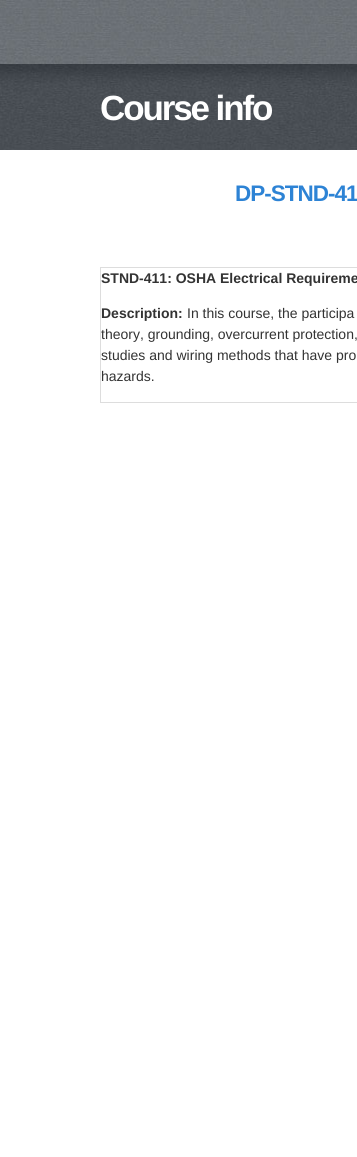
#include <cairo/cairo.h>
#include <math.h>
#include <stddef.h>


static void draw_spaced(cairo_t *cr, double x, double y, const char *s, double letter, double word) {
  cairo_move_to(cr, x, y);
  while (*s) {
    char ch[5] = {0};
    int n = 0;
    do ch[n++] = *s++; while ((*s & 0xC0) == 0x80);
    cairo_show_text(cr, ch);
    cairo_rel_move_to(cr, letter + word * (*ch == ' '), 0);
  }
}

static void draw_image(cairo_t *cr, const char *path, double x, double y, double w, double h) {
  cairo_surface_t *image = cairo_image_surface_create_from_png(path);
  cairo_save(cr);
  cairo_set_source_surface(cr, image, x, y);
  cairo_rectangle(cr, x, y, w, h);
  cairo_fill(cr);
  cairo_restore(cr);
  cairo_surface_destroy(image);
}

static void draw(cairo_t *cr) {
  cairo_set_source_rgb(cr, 1, 1, 1);
  cairo_paint(cr);
  draw_image(cr, "images/1.png", 0, 0, 357, 150);
  cairo_rectangle(cr, 100.5, 267.5, 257, 135);
  cairo_set_source_rgb(cr, 221 / 255.0, 221 / 255.0, 221 / 255.0);
  cairo_set_line_width(cr, 1);
  cairo_stroke(cr);
  cairo_select_font_face(cr, "Liberation Sans", CAIRO_FONT_SLANT_NORMAL, CAIRO_FONT_WEIGHT_BOLD);
  cairo_set_font_size(cr, 35);
  cairo_set_source_rgb(cr, 1, 1, 1);
  draw_spaced(cr, 100, 120, "Course info", -2.1, 0);
  cairo_set_font_size(cr, 22.5);
  cairo_set_source_rgb(cr, 45 / 255.0, 131 / 255.0, 213 / 255.0);
  draw_spaced(cr, 235, 201, "DP-STND-41", -1, 0);
  cairo_set_font_size(cr, 14);
  cairo_set_source_rgb(cr, 51 / 255.0, 51 / 255.0, 51 / 255.0);
  cairo_move_to(cr, 101, 283);
  cairo_show_text(cr, "STND-411: OSHA Electrical Requireme");
  cairo_move_to(cr, 101, 318);
  cairo_show_text(cr, "Description:");
  cairo_select_font_face(cr, "Liberation Sans", CAIRO_FONT_SLANT_NORMAL, CAIRO_FONT_WEIGHT_NORMAL);
  cairo_move_to(cr, 187, 318);
  cairo_show_text(cr, "In this course, the participa");
  cairo_move_to(cr, 101, 339);
  cairo_show_text(cr, "theory, grounding, overcurrent protection,");
  cairo_move_to(cr, 101, 360);
  cairo_show_text(cr, "studies and wiring methods that have pro");
  cairo_move_to(cr, 101, 381);
  cairo_show_text(cr, "hazards.");
}

int main(void) {
  cairo_surface_t *surface = cairo_image_surface_create(CAIRO_FORMAT_RGB24, 357, 1157);
  cairo_t *cr = cairo_create(surface);
  cairo_font_options_t *options = cairo_font_options_create();
  cairo_font_options_set_hint_metrics(options, CAIRO_HINT_METRICS_OFF);
  cairo_font_options_set_hint_style(options, CAIRO_HINT_STYLE_NONE);
  cairo_set_font_options(cr, options);
  cairo_set_miter_limit(cr, 4);
  draw(cr);
  cairo_surface_write_to_png(surface, "out.png");
  cairo_font_options_destroy(options);
  cairo_destroy(cr);
  cairo_surface_destroy(surface);
  return 0;
}
